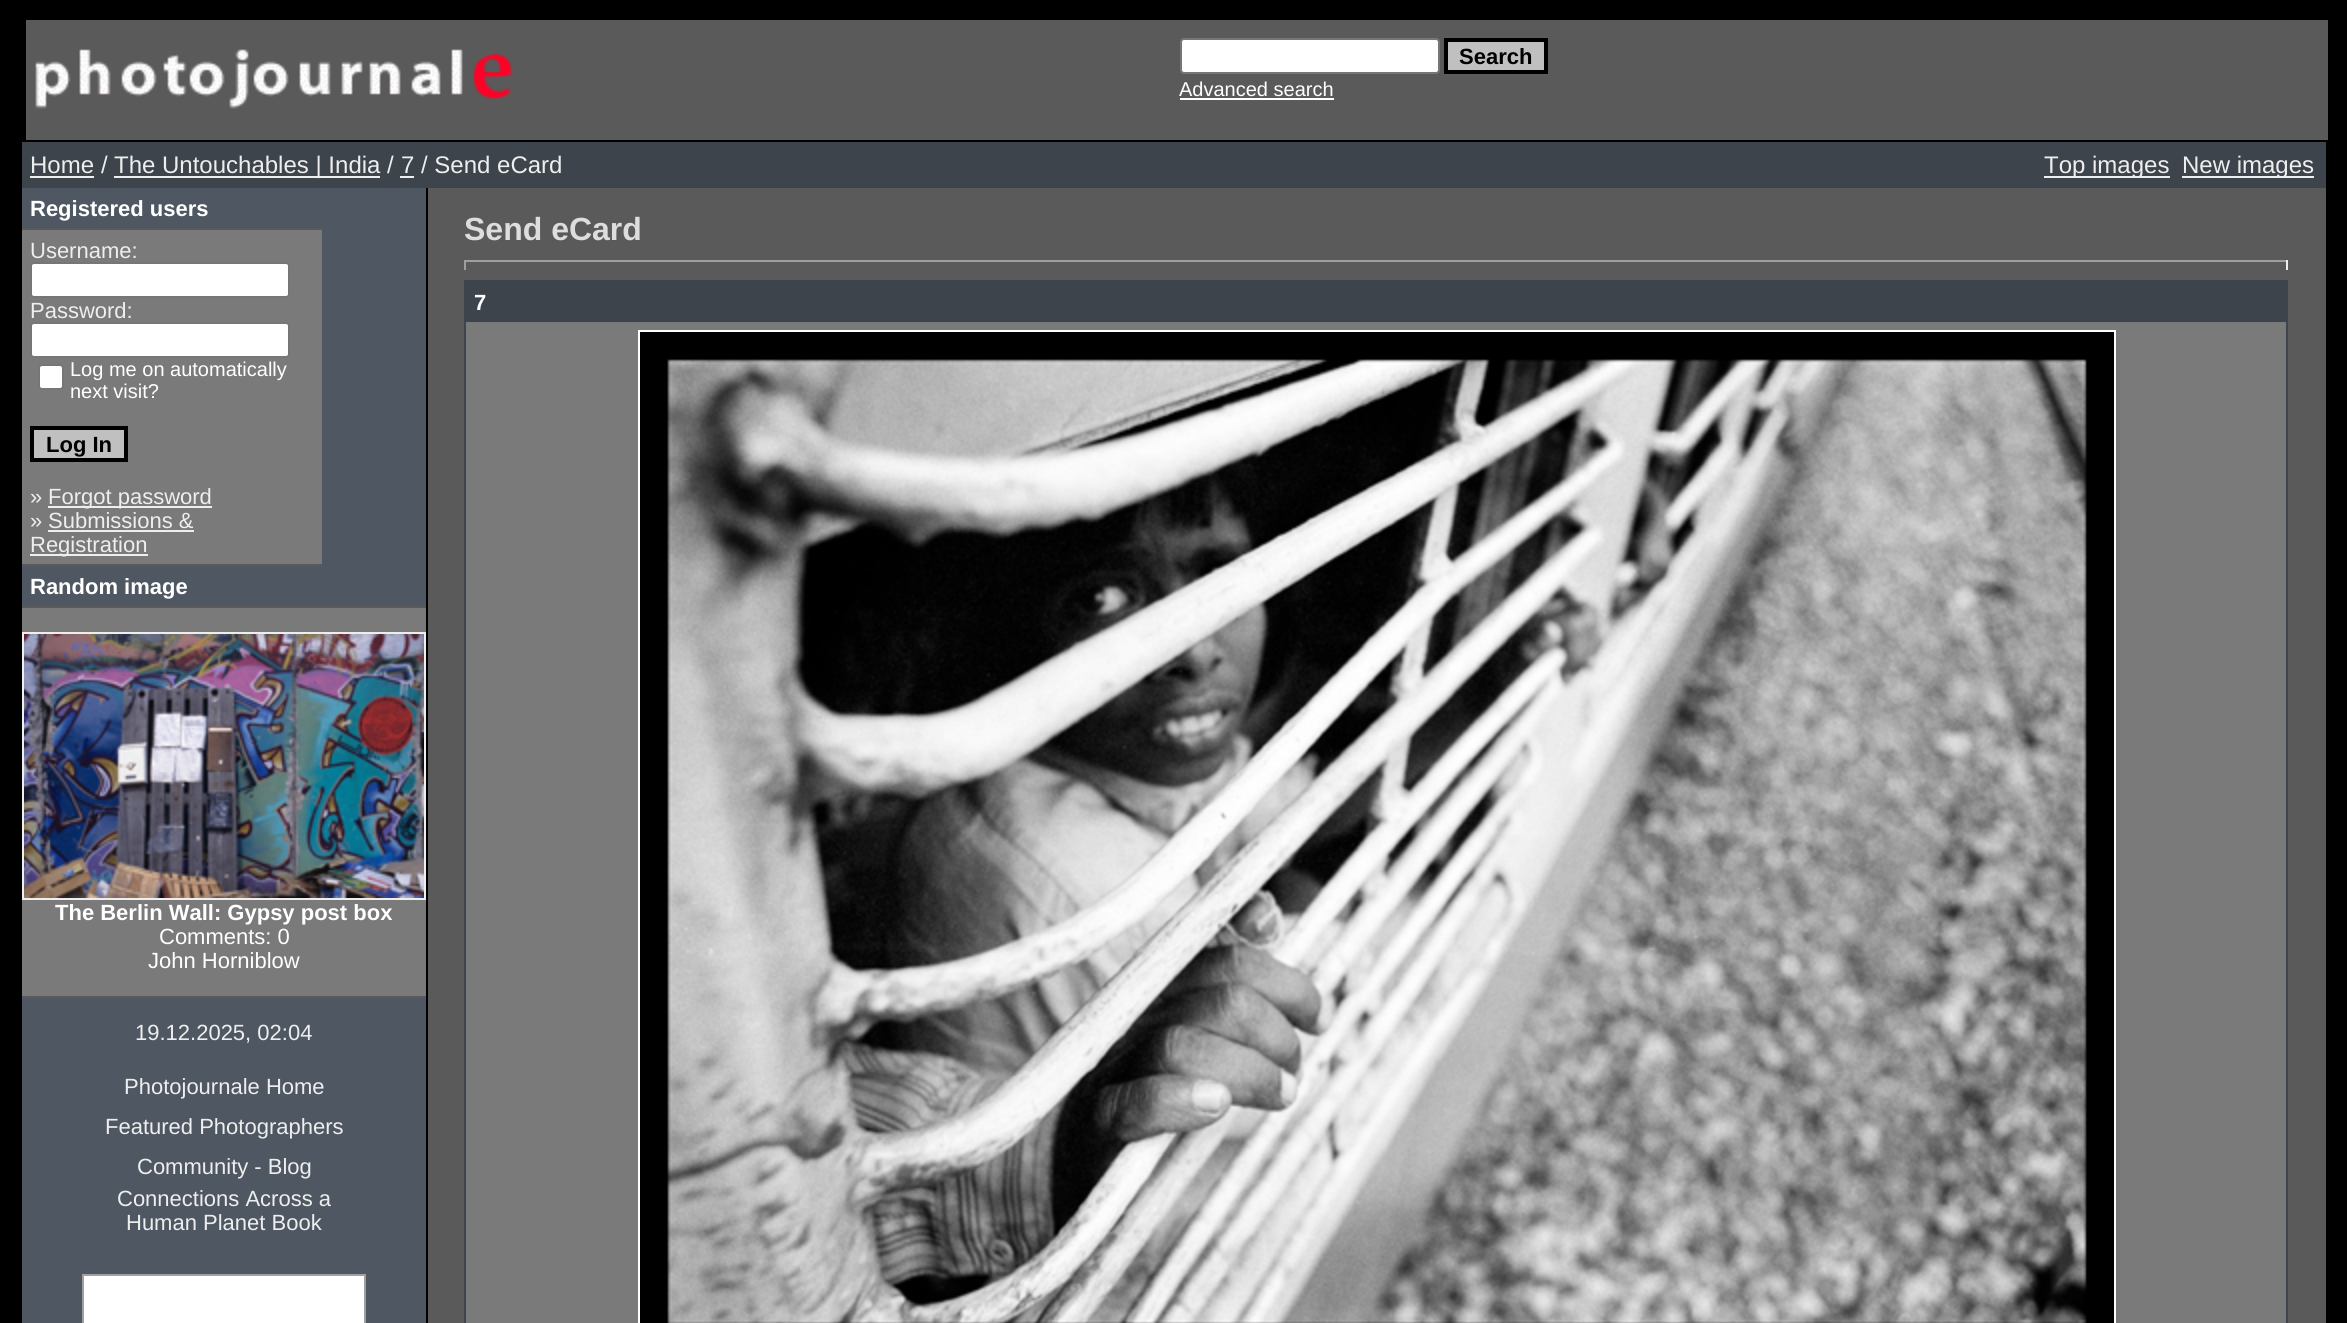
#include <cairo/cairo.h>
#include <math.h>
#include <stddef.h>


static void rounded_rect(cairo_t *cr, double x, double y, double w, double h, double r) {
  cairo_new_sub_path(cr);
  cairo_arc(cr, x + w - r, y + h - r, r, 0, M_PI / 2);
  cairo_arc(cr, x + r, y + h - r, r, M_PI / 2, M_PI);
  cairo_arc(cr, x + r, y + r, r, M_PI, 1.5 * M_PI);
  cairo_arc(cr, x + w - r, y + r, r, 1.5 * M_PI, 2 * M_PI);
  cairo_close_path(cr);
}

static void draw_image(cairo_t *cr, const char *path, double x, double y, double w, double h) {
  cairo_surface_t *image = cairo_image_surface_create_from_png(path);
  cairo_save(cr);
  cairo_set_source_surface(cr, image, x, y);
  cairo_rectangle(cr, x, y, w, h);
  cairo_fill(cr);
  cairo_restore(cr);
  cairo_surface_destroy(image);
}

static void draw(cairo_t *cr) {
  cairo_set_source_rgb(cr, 0, 0, 0);
  cairo_paint(cr);
  cairo_set_source_rgb(cr, 90 / 255.0, 90 / 255.0, 90 / 255.0);
  cairo_rectangle(cr, 26, 20, 2302, 120);
  cairo_fill(cr);
  draw_image(cr, "images/1.png", 35, 49, 478, 60);
  cairo_set_source_rgb(cr, 1, 1, 1);
  rounded_rect(cr, 1181, 39, 258, 34, 3);
  cairo_fill_preserve(cr);
  cairo_set_source_rgb(cr, 118 / 255.0, 118 / 255.0, 118 / 255.0);
  cairo_stroke(cr);
  cairo_set_source_rgb(cr, 192 / 255.0, 192 / 255.0, 192 / 255.0);
  cairo_rectangle(cr, 1446, 40, 100, 32);
  cairo_fill_preserve(cr);
  cairo_set_source_rgb(cr, 0, 0, 0);
  cairo_set_line_width(cr, 4);
  cairo_stroke(cr);
  cairo_set_source_rgb(cr, 1, 1, 1);
  cairo_rectangle(cr, 1180, 98, 154, 2);
  cairo_fill(cr);
  cairo_set_source_rgb(cr, 90 / 255.0, 90 / 255.0, 90 / 255.0);
  cairo_rectangle(cr, 428, 188, 1898, 1135);
  cairo_fill(cr);
  cairo_set_source_rgb(cr, 61 / 255.0, 68 / 255.0, 75 / 255.0);
  cairo_rectangle(cr, 22, 142, 2304, 46);
  cairo_fill(cr);
  cairo_set_source_rgb(cr, 238 / 255.0, 238 / 255.0, 238 / 255.0);
  cairo_rectangle(cr, 30, 176, 64, 2);
  cairo_fill(cr);
  cairo_rectangle(cr, 114, 176, 266, 2);
  cairo_fill(cr);
  cairo_rectangle(cr, 400, 176, 14, 2);
  cairo_fill(cr);
  cairo_rectangle(cr, 2044, 176, 126, 2);
  cairo_fill(cr);
  cairo_rectangle(cr, 2182, 176, 132, 2);
  cairo_fill(cr);
  cairo_set_source_rgb(cr, 79 / 255.0, 88 / 255.0, 98 / 255.0);
  cairo_rectangle(cr, 22, 188, 404, 1135);
  cairo_fill(cr);
  cairo_set_source_rgb(cr, 90 / 255.0, 90 / 255.0, 90 / 255.0);
  cairo_rectangle(cr, 22, 228, 300, 2);
  cairo_fill(cr);
  cairo_set_source_rgb(cr, 122 / 255.0, 122 / 255.0, 122 / 255.0);
  cairo_rectangle(cr, 22, 230, 300, 334);
  cairo_fill(cr);
  cairo_set_source_rgb(cr, 1, 1, 1);
  rounded_rect(cr, 31, 263, 258, 34, 3);
  cairo_fill_preserve(cr);
  cairo_set_source_rgb(cr, 118 / 255.0, 118 / 255.0, 118 / 255.0);
  cairo_set_line_width(cr, 2);
  cairo_stroke(cr);
  cairo_set_source_rgb(cr, 1, 1, 1);
  rounded_rect(cr, 31, 323, 258, 34, 3);
  cairo_fill_preserve(cr);
  cairo_set_source_rgb(cr, 118 / 255.0, 118 / 255.0, 118 / 255.0);
  cairo_stroke(cr);
  cairo_set_source_rgb(cr, 1, 1, 1);
  rounded_rect(cr, 39, 365, 24, 24, 3);
  cairo_fill_preserve(cr);
  cairo_set_source_rgb(cr, 118 / 255.0, 118 / 255.0, 118 / 255.0);
  cairo_stroke(cr);
  cairo_set_source_rgb(cr, 192 / 255.0, 192 / 255.0, 192 / 255.0);
  cairo_rectangle(cr, 32, 428, 94, 32);
  cairo_fill_preserve(cr);
  cairo_set_source_rgb(cr, 0, 0, 0);
  cairo_set_line_width(cr, 4);
  cairo_stroke(cr);
  cairo_set_source_rgb(cr, 238 / 255.0, 238 / 255.0, 238 / 255.0);
  cairo_rectangle(cr, 48, 506, 164, 2);
  cairo_fill(cr);
  cairo_rectangle(cr, 48, 530, 146, 2);
  cairo_fill(cr);
  cairo_rectangle(cr, 30, 554, 118, 2);
  cairo_fill(cr);
  cairo_set_source_rgb(cr, 90 / 255.0, 90 / 255.0, 90 / 255.0);
  cairo_rectangle(cr, 22, 564, 300, 2);
  cairo_fill(cr);
  cairo_rectangle(cr, 22, 606, 404, 2);
  cairo_fill(cr);
  cairo_set_source_rgb(cr, 122 / 255.0, 122 / 255.0, 122 / 255.0);
  cairo_rectangle(cr, 22, 608, 404, 388);
  cairo_fill(cr);
  cairo_rectangle(cr, 23, 633, 402, 266);
  cairo_set_source_rgb(cr, 238 / 255.0, 238 / 255.0, 238 / 255.0);
  cairo_set_line_width(cr, 2);
  cairo_stroke(cr);
  draw_image(cr, "images/2.png", 24, 634, 400, 264);
  cairo_set_source_rgb(cr, 90 / 255.0, 90 / 255.0, 90 / 255.0);
  cairo_rectangle(cr, 22, 996, 404, 2);
  cairo_fill(cr);
  cairo_set_source_rgb(cr, 1, 1, 1);
  cairo_rectangle(cr, 83, 1275, 282, 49);
  cairo_fill_preserve(cr);
  cairo_set_source_rgb(cr, 160 / 255.0, 160 / 255.0, 160 / 255.0);
  cairo_stroke(cr);
  cairo_set_source_rgb(cr, 159 / 255.0, 159 / 255.0, 159 / 255.0);
  cairo_rectangle(cr, 464, 260, 1824, 2);
  cairo_fill(cr);
  cairo_set_source_rgb(cr, 238 / 255.0, 238 / 255.0, 238 / 255.0);
  cairo_rectangle(cr, 2286, 260, 2, 10);
  cairo_fill(cr);
  cairo_set_source_rgb(cr, 159 / 255.0, 159 / 255.0, 159 / 255.0);
  cairo_rectangle(cr, 464, 260, 2, 10);
  cairo_fill(cr);
  cairo_set_source_rgb(cr, 61 / 255.0, 68 / 255.0, 75 / 255.0);
  cairo_rectangle(cr, 464, 280, 1824, 1043);
  cairo_fill(cr);
  cairo_set_source_rgb(cr, 122 / 255.0, 122 / 255.0, 122 / 255.0);
  cairo_rectangle(cr, 466, 322, 1820, 1001);
  cairo_fill(cr);
  cairo_rectangle(cr, 639, 331, 1476, 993);
  cairo_set_source_rgb(cr, 1, 1, 1);
  cairo_stroke(cr);
  draw_image(cr, "images/3.png", 640, 332, 1474, 991);
  cairo_select_font_face(cr, "Liberation Sans", CAIRO_FONT_SLANT_NORMAL, CAIRO_FONT_WEIGHT_BOLD);
  cairo_set_font_size(cr, 22);
  cairo_set_source_rgb(cr, 0, 0, 0);
  cairo_move_to(cr, 1459, 64);
  cairo_show_text(cr, "Search");
  cairo_select_font_face(cr, "Liberation Sans", CAIRO_FONT_SLANT_NORMAL, CAIRO_FONT_WEIGHT_NORMAL);
  cairo_set_font_size(cr, 20);
  cairo_set_source_rgb(cr, 1, 1, 1);
  cairo_move_to(cr, 1179, 96);
  cairo_show_text(cr, "Advanced search");
  cairo_set_font_size(cr, 24);
  cairo_set_source_rgb(cr, 238 / 255.0, 238 / 255.0, 238 / 255.0);
  cairo_move_to(cr, 30, 173);
  cairo_show_text(cr, "Home");
  cairo_move_to(cr, 101, 173);
  cairo_show_text(cr, "/");
  cairo_move_to(cr, 114, 173);
  cairo_show_text(cr, "The Untouchables | India");
  cairo_move_to(cr, 387, 173);
  cairo_show_text(cr, "/");
  cairo_move_to(cr, 401, 173);
  cairo_show_text(cr, "7");
  cairo_move_to(cr, 421, 173);
  cairo_show_text(cr, "/ Send eCard");
  cairo_move_to(cr, 2044, 173);
  cairo_show_text(cr, "Top images");
  cairo_move_to(cr, 2182, 173);
  cairo_show_text(cr, "New images");
  cairo_select_font_face(cr, "Liberation Sans", CAIRO_FONT_SLANT_NORMAL, CAIRO_FONT_WEIGHT_BOLD);
  cairo_set_font_size(cr, 22);
  cairo_set_source_rgb(cr, 1, 1, 1);
  cairo_move_to(cr, 30, 216);
  cairo_show_text(cr, "Registered users");
  cairo_select_font_face(cr, "Liberation Sans", CAIRO_FONT_SLANT_NORMAL, CAIRO_FONT_WEIGHT_NORMAL);
  cairo_set_source_rgb(cr, 238 / 255.0, 238 / 255.0, 238 / 255.0);
  cairo_move_to(cr, 30, 258);
  cairo_show_text(cr, "Username:");
  cairo_move_to(cr, 30, 318);
  cairo_show_text(cr, "Password:");
  cairo_set_font_size(cr, 20);
  cairo_set_source_rgb(cr, 1, 1, 1);
  cairo_move_to(cr, 70, 376);
  cairo_show_text(cr, "Log me on automatically");
  cairo_move_to(cr, 70, 398);
  cairo_show_text(cr, "next visit?");
  cairo_select_font_face(cr, "Liberation Sans", CAIRO_FONT_SLANT_NORMAL, CAIRO_FONT_WEIGHT_BOLD);
  cairo_set_font_size(cr, 22);
  cairo_set_source_rgb(cr, 0, 0, 0);
  cairo_move_to(cr, 46, 452);
  cairo_show_text(cr, "Log In");
  cairo_select_font_face(cr, "Liberation Sans", CAIRO_FONT_SLANT_NORMAL, CAIRO_FONT_WEIGHT_NORMAL);
  cairo_set_source_rgb(cr, 238 / 255.0, 238 / 255.0, 238 / 255.0);
  cairo_move_to(cr, 30, 504);
  cairo_show_text(cr, "»");
  cairo_move_to(cr, 48, 504);
  cairo_show_text(cr, "Forgot password");
  cairo_move_to(cr, 30, 528);
  cairo_show_text(cr, "»");
  cairo_move_to(cr, 48, 528);
  cairo_show_text(cr, "Submissions &");
  cairo_move_to(cr, 30, 552);
  cairo_show_text(cr, "Registration");
  cairo_select_font_face(cr, "Liberation Sans", CAIRO_FONT_SLANT_NORMAL, CAIRO_FONT_WEIGHT_BOLD);
  cairo_set_source_rgb(cr, 1, 1, 1);
  cairo_move_to(cr, 30, 594);
  cairo_show_text(cr, "Random image");
  cairo_move_to(cr, 55, 920);
  cairo_show_text(cr, "The Berlin Wall: Gypsy post box");
  cairo_select_font_face(cr, "Liberation Sans", CAIRO_FONT_SLANT_NORMAL, CAIRO_FONT_WEIGHT_NORMAL);
  cairo_move_to(cr, 159, 944);
  cairo_show_text(cr, "Comments: 0");
  cairo_move_to(cr, 148, 968);
  cairo_show_text(cr, "John Horniblow");
  cairo_set_source_rgb(cr, 238 / 255.0, 238 / 255.0, 238 / 255.0);
  cairo_move_to(cr, 135, 1040);
  cairo_show_text(cr, "19.12.2025, 02:04");
  cairo_move_to(cr, 124, 1094);
  cairo_show_text(cr, "Photojournale Home");
  cairo_move_to(cr, 105, 1134);
  cairo_show_text(cr, "Featured Photographers");
  cairo_move_to(cr, 137, 1174);
  cairo_show_text(cr, "Community - Blog");
  cairo_move_to(cr, 117, 1206);
  cairo_show_text(cr, "Connections Across a");
  cairo_move_to(cr, 126, 1230);
  cairo_show_text(cr, "Human Planet Book");
  cairo_select_font_face(cr, "Liberation Sans", CAIRO_FONT_SLANT_NORMAL, CAIRO_FONT_WEIGHT_BOLD);
  cairo_set_font_size(cr, 32);
  cairo_set_source_rgb(cr, 221 / 255.0, 221 / 255.0, 221 / 255.0);
  cairo_move_to(cr, 464, 240);
  cairo_show_text(cr, "Send eCard");
  cairo_set_font_size(cr, 22);
  cairo_set_source_rgb(cr, 1, 1, 1);
  cairo_move_to(cr, 474, 310);
  cairo_show_text(cr, "7");
}

int main(void) {
  cairo_surface_t *surface = cairo_image_surface_create(CAIRO_FORMAT_RGB24, 2347, 1323);
  cairo_t *cr = cairo_create(surface);
  cairo_font_options_t *options = cairo_font_options_create();
  cairo_font_options_set_hint_metrics(options, CAIRO_HINT_METRICS_OFF);
  cairo_font_options_set_hint_style(options, CAIRO_HINT_STYLE_NONE);
  cairo_set_font_options(cr, options);
  cairo_set_miter_limit(cr, 4);
  draw(cr);
  cairo_surface_write_to_png(surface, "out.png");
  cairo_font_options_destroy(options);
  cairo_destroy(cr);
  cairo_surface_destroy(surface);
  return 0;
}
